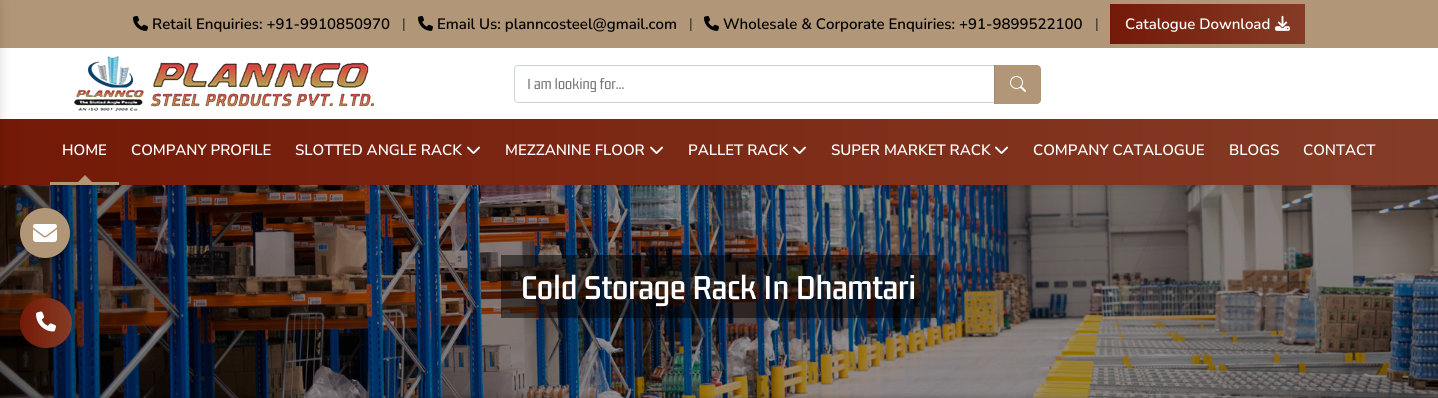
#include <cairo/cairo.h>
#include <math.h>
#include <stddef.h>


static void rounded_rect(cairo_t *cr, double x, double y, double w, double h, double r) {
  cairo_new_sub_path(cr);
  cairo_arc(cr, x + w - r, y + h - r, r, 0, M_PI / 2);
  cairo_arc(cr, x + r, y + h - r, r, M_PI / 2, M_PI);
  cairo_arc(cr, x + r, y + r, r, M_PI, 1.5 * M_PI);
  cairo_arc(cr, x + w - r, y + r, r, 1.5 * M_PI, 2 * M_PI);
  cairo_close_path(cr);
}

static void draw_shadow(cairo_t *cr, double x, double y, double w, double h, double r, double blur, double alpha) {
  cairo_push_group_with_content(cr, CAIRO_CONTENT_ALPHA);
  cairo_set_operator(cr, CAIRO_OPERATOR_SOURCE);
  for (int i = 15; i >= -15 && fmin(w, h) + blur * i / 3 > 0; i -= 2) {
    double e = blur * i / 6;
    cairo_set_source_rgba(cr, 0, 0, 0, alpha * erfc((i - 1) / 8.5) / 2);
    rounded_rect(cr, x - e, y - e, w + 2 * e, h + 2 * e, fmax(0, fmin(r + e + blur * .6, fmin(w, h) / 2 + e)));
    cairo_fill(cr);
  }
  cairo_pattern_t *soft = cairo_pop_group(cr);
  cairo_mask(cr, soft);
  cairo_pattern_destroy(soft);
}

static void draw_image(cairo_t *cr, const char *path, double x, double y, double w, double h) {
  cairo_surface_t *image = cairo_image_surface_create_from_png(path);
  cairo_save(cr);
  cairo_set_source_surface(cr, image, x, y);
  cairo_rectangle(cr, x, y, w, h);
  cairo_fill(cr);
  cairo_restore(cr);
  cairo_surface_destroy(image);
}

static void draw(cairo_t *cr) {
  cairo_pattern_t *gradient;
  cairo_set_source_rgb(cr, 1, 1, 1);
  cairo_paint(cr);
  cairo_set_source_rgb(cr, 177 / 255.0, 151 / 255.0, 119 / 255.0);
  cairo_rectangle(cr, 0, 0, 1438, 48);
  cairo_fill(cr);
  draw_image(cr, "images/10.png", 0, 185, 1438, 213);
  cairo_set_source_rgb(cr, 0, 0, 0);
  draw_shadow(cr, 0, 122, 1438, 66, 0, 2.5, 0.1);
  gradient = cairo_pattern_create_linear(0, 152, 1438, 152);
  cairo_pattern_add_color_stop_rgba(gradient, 0, 116 / 255.0, 25 / 255.0, 7 / 255.0, 1);
  cairo_pattern_add_color_stop_rgba(gradient, 1, 133 / 255.0, 60 / 255.0, 38 / 255.0, 1);
  cairo_pattern_add_color_stop_rgba(gradient, 1, 151 / 255.0, 98 / 255.0, 72 / 255.0, 1);
  cairo_pattern_add_color_stop_rgba(gradient, 1, 177 / 255.0, 151 / 255.0, 119 / 255.0, 1);
  cairo_set_source(cr, gradient);
  cairo_pattern_destroy(gradient);
  cairo_rectangle(cr, 0, 119, 1438, 66);
  cairo_fill(cr);
  cairo_set_source_rgb(cr, 0, 0, 0);
  draw_shadow(cr, -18, 0, 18, 398, 0, 6, 0.14);
  draw_shadow(cr, 20, 210, 50, 50, 25, 3, 0.4);
  cairo_set_source_rgb(cr, 177 / 255.0, 151 / 255.0, 119 / 255.0);
  cairo_arc(cr, 45, 233, 25, 0, 2 * M_PI);
  cairo_fill(cr);
  draw_image(cr, "images/1.png", 33, 224, 24, 18);
  draw_image(cr, "images/2.png", 133, 15, 15, 16);
  draw_image(cr, "images/2.png", 418, 15, 15, 16);
  draw_image(cr, "images/2.png", 704, 15, 15, 16);
  gradient = cairo_pattern_create_linear(1110, 24, 1305, 24);
  cairo_pattern_add_color_stop_rgba(gradient, 0, 116 / 255.0, 25 / 255.0, 7 / 255.0, 1);
  cairo_pattern_add_color_stop_rgba(gradient, 1, 133 / 255.0, 60 / 255.0, 38 / 255.0, 1);
  cairo_pattern_add_color_stop_rgba(gradient, 1, 151 / 255.0, 98 / 255.0, 72 / 255.0, 1);
  cairo_pattern_add_color_stop_rgba(gradient, 1, 177 / 255.0, 151 / 255.0, 119 / 255.0, 1);
  cairo_set_source(cr, gradient);
  cairo_pattern_destroy(gradient);
  cairo_rectangle(cr, 1110, 4, 195, 40);
  cairo_fill(cr);
  draw_image(cr, "images/3.png", 1275, 15, 15, 16);
  draw_image(cr, "images/4.png", 74, 56, 300, 55);
  rounded_rect(cr, 514.5, 65.5, 519, 37, 3.5);
  cairo_set_source_rgb(cr, 206 / 255.0, 212 / 255.0, 218 / 255.0);
  cairo_set_line_width(cr, 1);
  cairo_stroke(cr);
  cairo_set_source_rgb(cr, 177 / 255.0, 151 / 255.0, 119 / 255.0);
  cairo_new_path(cr);
  cairo_move_to(cr, 994, 65);
  cairo_line_to(cr, 1037, 65);
  cairo_curve_to(cr, 1039, 65, 1041, 67, 1041, 69);
  cairo_line_to(cr, 1041, 100);
  cairo_curve_to(cr, 1041, 102, 1039, 104, 1037, 104);
  cairo_line_to(cr, 994, 104);
  cairo_close_path(cr);
  cairo_fill(cr);
  cairo_set_source_rgb(cr, 159 / 255.0, 136 / 255.0, 107 / 255.0);
  cairo_rectangle(cr, 994, 65, 1, 39);
  cairo_fill(cr);
  draw_image(cr, "images/5.png", 1010, 76, 16, 16);
  cairo_set_source_rgb(cr, 177 / 255.0, 151 / 255.0, 119 / 255.0);
  cairo_rectangle(cr, 50, 182, 69, 3);
  cairo_fill(cr);
  cairo_new_path(cr);
  cairo_move_to(cr, 92, 182);
  cairo_line_to(cr, 78, 182);
  cairo_line_to(cr, 85, 175);
  cairo_close_path(cr);
  cairo_fill(cr);
  draw_image(cr, "images/6.png", 467, 146, 13, 8);
  draw_image(cr, "images/7.png", 650, 146, 13, 8);
  draw_image(cr, "images/8.png", 793, 146, 13, 8);
  draw_image(cr, "images/9.png", 995, 146, 13, 8);
  cairo_set_source_rgba(cr, 0, 0, 0, 0.5);
  cairo_rectangle(cr, 501, 255, 436, 63);
  cairo_fill(cr);
  cairo_set_source_rgb(cr, 0, 0, 0);
  draw_shadow(cr, 0, 398, 1438, 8, 0, 2.5, 0.2);
  gradient = cairo_pattern_create_linear(20, 323, 72, 323);
  cairo_pattern_add_color_stop_rgba(gradient, 0, 116 / 255.0, 25 / 255.0, 7 / 255.0, 1);
  cairo_pattern_add_color_stop_rgba(gradient, 1, 133 / 255.0, 60 / 255.0, 38 / 255.0, 1);
  cairo_pattern_add_color_stop_rgba(gradient, 1, 151 / 255.0, 98 / 255.0, 72 / 255.0, 1);
  cairo_pattern_add_color_stop_rgba(gradient, 1, 177 / 255.0, 151 / 255.0, 119 / 255.0, 1);
  cairo_set_source(cr, gradient);
  cairo_pattern_destroy(gradient);
  cairo_new_path(cr);
  cairo_move_to(cr, 46, 298);
  cairo_curve_to(cr, 60.5, 298, 72, 309, 72, 323);
  cairo_curve_to(cr, 72, 337, 60.5, 348, 46, 348);
  cairo_curve_to(cr, 31.5, 348, 20, 337, 20, 323);
  cairo_curve_to(cr, 20, 309, 31.5, 298, 46, 298);
  cairo_close_path(cr);
  cairo_fill(cr);
  draw_image(cr, "images/11.png", 36, 311, 20, 21);
  cairo_select_font_face(cr, "Nunito Sans SemiBold", CAIRO_FONT_SLANT_NORMAL, CAIRO_FONT_WEIGHT_NORMAL);
  cairo_set_font_size(cr, 15);
  cairo_set_source_rgb(cr, 0, 0, 0);
  cairo_move_to(cr, 152, 29);
  cairo_show_text(cr, "Retail Enquiries: +91-9910850970");
  cairo_select_font_face(cr, "Roboto", CAIRO_FONT_SLANT_NORMAL, CAIRO_FONT_WEIGHT_NORMAL);
  cairo_set_source_rgb(cr, 33 / 255.0, 37 / 255.0, 41 / 255.0);
  cairo_move_to(cr, 402, 29);
  cairo_show_text(cr, "|");
  cairo_select_font_face(cr, "Nunito Sans SemiBold", CAIRO_FONT_SLANT_NORMAL, CAIRO_FONT_WEIGHT_NORMAL);
  cairo_set_source_rgb(cr, 0, 0, 0);
  cairo_move_to(cr, 437, 29);
  cairo_show_text(cr, "Email Us: planncosteel@gmail.com");
  cairo_select_font_face(cr, "Roboto", CAIRO_FONT_SLANT_NORMAL, CAIRO_FONT_WEIGHT_NORMAL);
  cairo_set_source_rgb(cr, 33 / 255.0, 37 / 255.0, 41 / 255.0);
  cairo_move_to(cr, 689, 29);
  cairo_show_text(cr, "|");
  cairo_select_font_face(cr, "Nunito Sans SemiBold", CAIRO_FONT_SLANT_NORMAL, CAIRO_FONT_WEIGHT_NORMAL);
  cairo_set_source_rgb(cr, 0, 0, 0);
  cairo_move_to(cr, 723, 29);
  cairo_show_text(cr, "Wholesale & Corporate Enquiries: +91-9899522100");
  cairo_select_font_face(cr, "Roboto", CAIRO_FONT_SLANT_NORMAL, CAIRO_FONT_WEIGHT_NORMAL);
  cairo_set_source_rgb(cr, 33 / 255.0, 37 / 255.0, 41 / 255.0);
  cairo_move_to(cr, 1095, 29);
  cairo_show_text(cr, "|");
  cairo_select_font_face(cr, "Nunito Sans SemiBold", CAIRO_FONT_SLANT_NORMAL, CAIRO_FONT_WEIGHT_NORMAL);
  cairo_set_source_rgb(cr, 1, 1, 1);
  cairo_move_to(cr, 1125, 29);
  cairo_show_text(cr, "Catalogue Download");
  cairo_save(cr);
  cairo_rectangle(cr, 527, 75, 494, 17);
  cairo_clip(cr);
  cairo_select_font_face(cr, "Gemunu Libre", CAIRO_FONT_SLANT_NORMAL, CAIRO_FONT_WEIGHT_NORMAL);
  cairo_set_font_size(cr, 16);
  cairo_set_source_rgb(cr, 117 / 255.0, 117 / 255.0, 117 / 255.0);
  cairo_move_to(cr, 527, 89);
  cairo_show_text(cr, "I am looking for...");
  cairo_restore(cr);
  cairo_move_to(cr, 62, 155);
  cairo_show_text(cr, "HOME");
  cairo_move_to(cr, 131, 155);
  cairo_show_text(cr, "COMPANY PROFILE");
  cairo_move_to(cr, 295, 155);
  cairo_show_text(cr, "SLOTTED ANGLE RACK");
  cairo_move_to(cr, 505, 155);
  cairo_show_text(cr, "MEZZANINE FLOOR");
  cairo_move_to(cr, 688, 155);
  cairo_show_text(cr, "PALLET RACK");
  cairo_move_to(cr, 831, 155);
  cairo_show_text(cr, "SUPER MARKET RACK");
  cairo_move_to(cr, 1033, 155);
  cairo_show_text(cr, "COMPANY CATALOGUE");
  cairo_move_to(cr, 1229, 155);
  cairo_show_text(cr, "BLOGS");
  cairo_move_to(cr, 1303, 155);
  cairo_show_text(cr, "CONTACT");
  cairo_select_font_face(cr, "Gemunu Libre SemiBold", CAIRO_FONT_SLANT_NORMAL, CAIRO_FONT_WEIGHT_NORMAL);
  cairo_set_font_size(cr, 36);
  cairo_move_to(cr, 521, 299);
  cairo_show_text(cr, "Cold Storage Rack In Dhamtari");
}

int main(void) {
  cairo_surface_t *surface = cairo_image_surface_create(CAIRO_FORMAT_RGB24, 1438, 398);
  cairo_t *cr = cairo_create(surface);
  cairo_font_options_t *options = cairo_font_options_create();
  cairo_font_options_set_hint_metrics(options, CAIRO_HINT_METRICS_OFF);
  cairo_font_options_set_hint_style(options, CAIRO_HINT_STYLE_NONE);
  cairo_set_font_options(cr, options);
  cairo_set_miter_limit(cr, 4);
  draw(cr);
  cairo_surface_write_to_png(surface, "out.png");
  cairo_font_options_destroy(options);
  cairo_destroy(cr);
  cairo_surface_destroy(surface);
  return 0;
}
